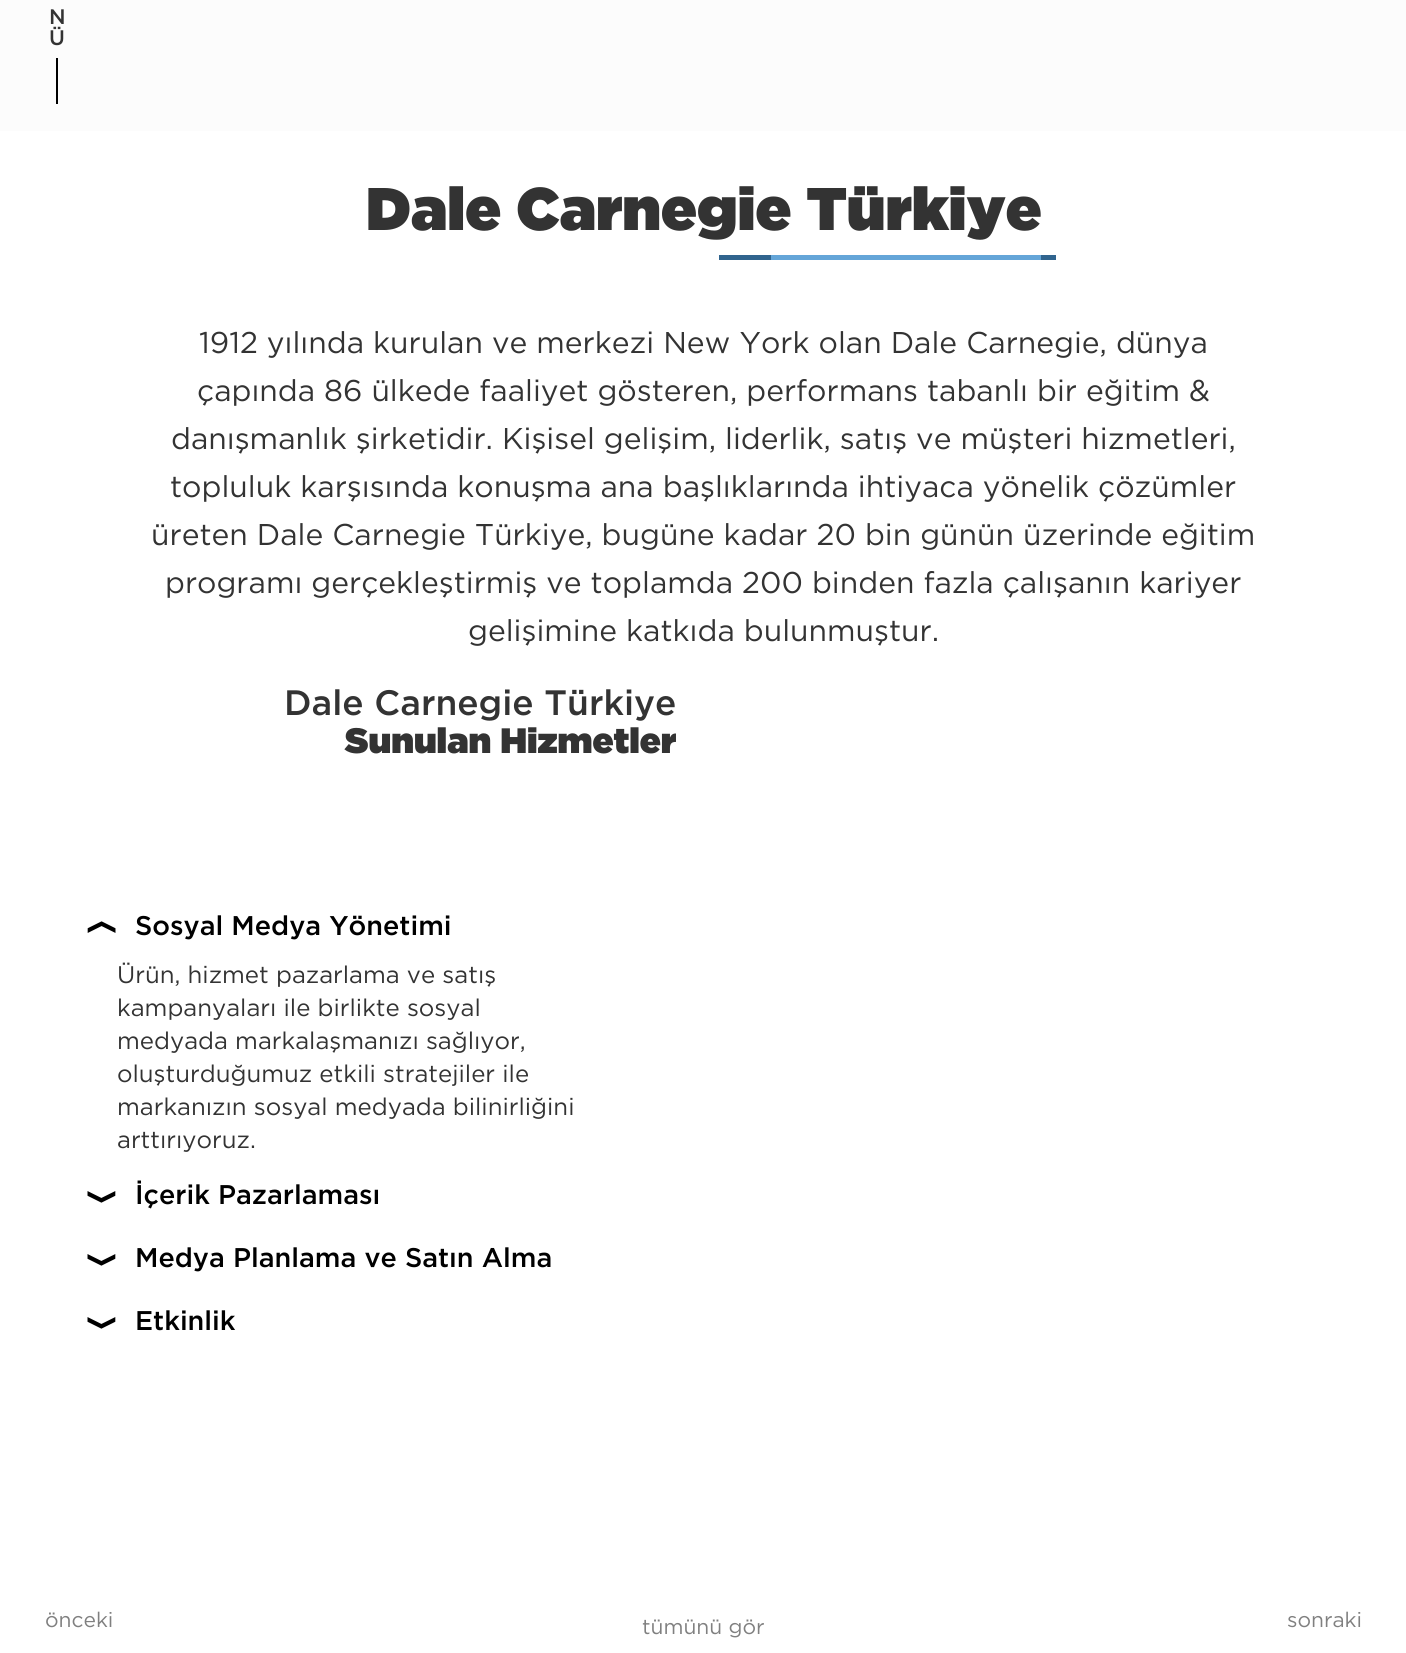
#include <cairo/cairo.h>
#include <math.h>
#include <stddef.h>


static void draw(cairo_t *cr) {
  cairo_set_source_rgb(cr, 1, 1, 1);
  cairo_paint(cr);
  cairo_set_source_rgb(cr, 252 / 255.0, 252 / 255.0, 252 / 255.0);
  cairo_rectangle(cr, 0, 0, 1406, 131);
  cairo_fill(cr);
  cairo_set_source_rgb(cr, 0, 0, 0);
  cairo_rectangle(cr, 56, 58, 2, 46);
  cairo_fill(cr);
  cairo_set_source_rgb(cr, 48 / 255.0, 100 / 255.0, 142 / 255.0);
  cairo_rectangle(cr, 719, 255, 337, 5);
  cairo_fill(cr);
  cairo_set_source_rgb(cr, 100 / 255.0, 165 / 255.0, 216 / 255.0);
  cairo_rectangle(cr, 771, 255, 270, 5);
  cairo_fill(cr);
  cairo_select_font_face(cr, "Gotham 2 Medium", CAIRO_FONT_SLANT_NORMAL, CAIRO_FONT_WEIGHT_NORMAL);
  cairo_set_font_size(cr, 21);
  cairo_set_source_rgb(cr, 51 / 255.0, 51 / 255.0, 51 / 255.0);
  cairo_move_to(cr, 49, 24);
  cairo_show_text(cr, "N");
  cairo_move_to(cr, 49, 45);
  cairo_show_text(cr, "Ü");
  cairo_select_font_face(cr, "Gotham Medium", CAIRO_FONT_SLANT_NORMAL, CAIRO_FONT_WEIGHT_NORMAL);
  cairo_set_font_size(cr, 60);
  cairo_move_to(cr, 366, 230);
  cairo_show_text(cr, "Dale Carnegie Türkiye");
  cairo_select_font_face(cr, "Gotham", CAIRO_FONT_SLANT_NORMAL, CAIRO_FONT_WEIGHT_NORMAL);
  cairo_set_font_size(cr, 30);
  cairo_move_to(cr, 199, 353);
  cairo_show_text(cr, "1912 yılında kurulan ve merkezi New York olan Dale Carnegie, dünya");
  cairo_move_to(cr, 197, 401);
  cairo_show_text(cr, "çapında 86 ülkede faaliyet gösteren, performans tabanlı bir eğitim &");
  cairo_move_to(cr, 171, 449);
  cairo_show_text(cr, "danışmanlık şirketidir. Kişisel gelişim, liderlik, satış ve müşteri hizmetleri,");
  cairo_move_to(cr, 170, 497);
  cairo_show_text(cr, "topluluk karşısında konuşma ana başlıklarında ihtiyaca yönelik çözümler");
  cairo_move_to(cr, 151, 545);
  cairo_show_text(cr, "üreten Dale Carnegie Türkiye, bugüne kadar 20 bin günün üzerinde eğitim");
  cairo_move_to(cr, 165, 593);
  cairo_show_text(cr, "programı gerçekleştirmiş ve toplamda 200 binden fazla çalışanın kariyer");
  cairo_move_to(cr, 468, 641);
  cairo_show_text(cr, "gelişimine katkıda bulunmuştur.");
  cairo_select_font_face(cr, "Gotham 2 Medium", CAIRO_FONT_SLANT_NORMAL, CAIRO_FONT_WEIGHT_NORMAL);
  cairo_set_font_size(cr, 35.25);
  cairo_move_to(cr, 284, 715);
  cairo_show_text(cr, "Dale Carnegie Türkiye");
  cairo_select_font_face(cr, "Gotham Medium", CAIRO_FONT_SLANT_NORMAL, CAIRO_FONT_WEIGHT_NORMAL);
  cairo_move_to(cr, 345, 753);
  cairo_show_text(cr, "Sunulan Hizmetler");
  cairo_select_font_face(cr, "DejaVu Sans", CAIRO_FONT_SLANT_NORMAL, CAIRO_FONT_WEIGHT_BOLD);
  cairo_set_font_size(cr, 27);
  cairo_set_source_rgb(cr, 0, 0, 0);
  cairo_save(cr);
  cairo_translate(cr, 109, 939);
  cairo_rotate(cr, -90 * M_PI / 180);
  cairo_move_to(cr, 0, 0);
  cairo_show_text(cr, "❭");
  cairo_restore(cr);
  cairo_select_font_face(cr, "Gotham 2 Medium", CAIRO_FONT_SLANT_NORMAL, CAIRO_FONT_WEIGHT_NORMAL);
  cairo_move_to(cr, 135, 935);
  cairo_show_text(cr, "Sosyal Medya Yönetimi");
  cairo_select_font_face(cr, "Gotham", CAIRO_FONT_SLANT_NORMAL, CAIRO_FONT_WEIGHT_NORMAL);
  cairo_set_font_size(cr, 24);
  cairo_set_source_rgb(cr, 51 / 255.0, 51 / 255.0, 51 / 255.0);
  cairo_move_to(cr, 117, 983);
  cairo_show_text(cr, "Ürün, hizmet pazarlama ve satış");
  cairo_move_to(cr, 117, 1016);
  cairo_show_text(cr, "kampanyaları ile birlikte sosyal");
  cairo_move_to(cr, 117, 1049);
  cairo_show_text(cr, "medyada markalaşmanızı sağlıyor,");
  cairo_move_to(cr, 117, 1082);
  cairo_show_text(cr, "oluşturduğumuz etkili stratejiler ile");
  cairo_move_to(cr, 117, 1115);
  cairo_show_text(cr, "markanızın sosyal medyada bilinirliğini");
  cairo_move_to(cr, 117, 1148);
  cairo_show_text(cr, "arttırıyoruz.");
  cairo_select_font_face(cr, "DejaVu Sans", CAIRO_FONT_SLANT_NORMAL, CAIRO_FONT_WEIGHT_BOLD);
  cairo_set_font_size(cr, 27);
  cairo_set_source_rgb(cr, 0, 0, 0);
  cairo_save(cr);
  cairo_translate(cr, 94, 1185);
  cairo_rotate(cr, 90 * M_PI / 180);
  cairo_move_to(cr, 0, 0);
  cairo_show_text(cr, "❭");
  cairo_restore(cr);
  cairo_select_font_face(cr, "Gotham 2 Medium", CAIRO_FONT_SLANT_NORMAL, CAIRO_FONT_WEIGHT_NORMAL);
  cairo_move_to(cr, 135, 1204);
  cairo_show_text(cr, "İçerik Pazarlaması");
  cairo_select_font_face(cr, "DejaVu Sans", CAIRO_FONT_SLANT_NORMAL, CAIRO_FONT_WEIGHT_BOLD);
  cairo_save(cr);
  cairo_translate(cr, 94, 1248);
  cairo_rotate(cr, 90 * M_PI / 180);
  cairo_move_to(cr, 0, 0);
  cairo_show_text(cr, "❭");
  cairo_restore(cr);
  cairo_select_font_face(cr, "Gotham 2 Medium", CAIRO_FONT_SLANT_NORMAL, CAIRO_FONT_WEIGHT_NORMAL);
  cairo_move_to(cr, 135, 1267);
  cairo_show_text(cr, "Medya Planlama ve Satın Alma");
  cairo_select_font_face(cr, "DejaVu Sans", CAIRO_FONT_SLANT_NORMAL, CAIRO_FONT_WEIGHT_BOLD);
  cairo_save(cr);
  cairo_translate(cr, 94, 1311);
  cairo_rotate(cr, 90 * M_PI / 180);
  cairo_move_to(cr, 0, 0);
  cairo_show_text(cr, "❭");
  cairo_restore(cr);
  cairo_select_font_face(cr, "Gotham 2 Medium", CAIRO_FONT_SLANT_NORMAL, CAIRO_FONT_WEIGHT_NORMAL);
  cairo_move_to(cr, 135, 1330);
  cairo_show_text(cr, "Etkinlik");
  cairo_select_font_face(cr, "Gotham", CAIRO_FONT_SLANT_NORMAL, CAIRO_FONT_WEIGHT_NORMAL);
  cairo_set_font_size(cr, 21);
  cairo_set_source_rgb(cr, 128 / 255.0, 128 / 255.0, 128 / 255.0);
  cairo_move_to(cr, 45, 1627);
  cairo_show_text(cr, "önceki");
  cairo_move_to(cr, 642, 1634);
  cairo_show_text(cr, "tümünü gör");
  cairo_move_to(cr, 1287, 1627);
  cairo_show_text(cr, "sonraki");
}

int main(void) {
  cairo_surface_t *surface = cairo_image_surface_create(CAIRO_FORMAT_RGB24, 1406, 1653);
  cairo_t *cr = cairo_create(surface);
  cairo_font_options_t *options = cairo_font_options_create();
  cairo_font_options_set_hint_metrics(options, CAIRO_HINT_METRICS_OFF);
  cairo_font_options_set_hint_style(options, CAIRO_HINT_STYLE_NONE);
  cairo_set_font_options(cr, options);
  cairo_set_miter_limit(cr, 4);
  draw(cr);
  cairo_surface_write_to_png(surface, "out.png");
  cairo_font_options_destroy(options);
  cairo_destroy(cr);
  cairo_surface_destroy(surface);
  return 0;
}
